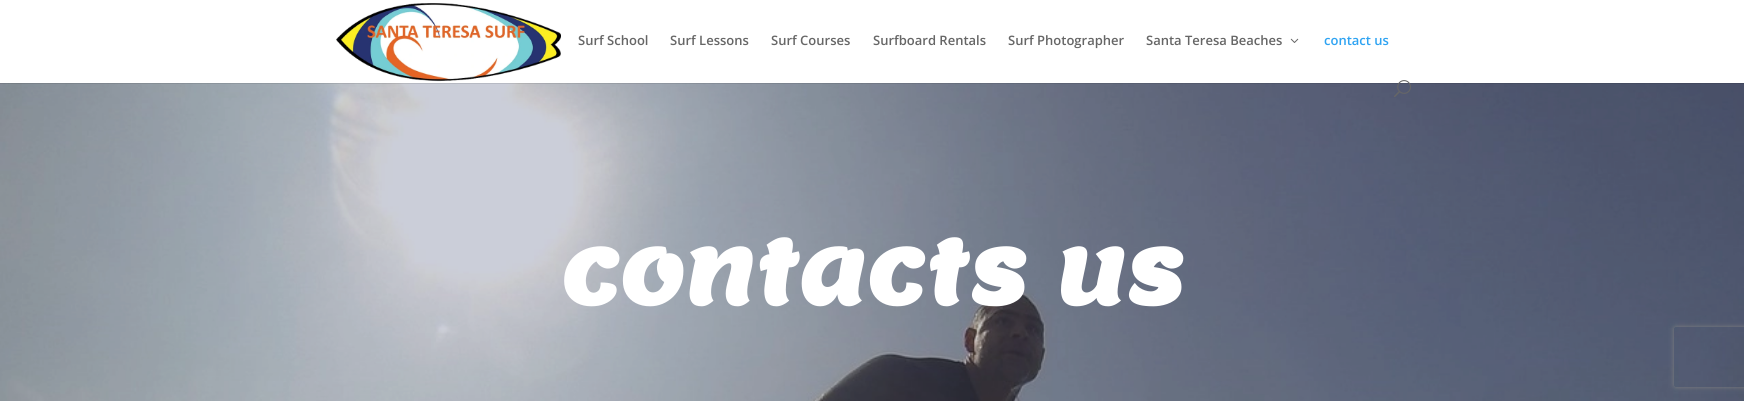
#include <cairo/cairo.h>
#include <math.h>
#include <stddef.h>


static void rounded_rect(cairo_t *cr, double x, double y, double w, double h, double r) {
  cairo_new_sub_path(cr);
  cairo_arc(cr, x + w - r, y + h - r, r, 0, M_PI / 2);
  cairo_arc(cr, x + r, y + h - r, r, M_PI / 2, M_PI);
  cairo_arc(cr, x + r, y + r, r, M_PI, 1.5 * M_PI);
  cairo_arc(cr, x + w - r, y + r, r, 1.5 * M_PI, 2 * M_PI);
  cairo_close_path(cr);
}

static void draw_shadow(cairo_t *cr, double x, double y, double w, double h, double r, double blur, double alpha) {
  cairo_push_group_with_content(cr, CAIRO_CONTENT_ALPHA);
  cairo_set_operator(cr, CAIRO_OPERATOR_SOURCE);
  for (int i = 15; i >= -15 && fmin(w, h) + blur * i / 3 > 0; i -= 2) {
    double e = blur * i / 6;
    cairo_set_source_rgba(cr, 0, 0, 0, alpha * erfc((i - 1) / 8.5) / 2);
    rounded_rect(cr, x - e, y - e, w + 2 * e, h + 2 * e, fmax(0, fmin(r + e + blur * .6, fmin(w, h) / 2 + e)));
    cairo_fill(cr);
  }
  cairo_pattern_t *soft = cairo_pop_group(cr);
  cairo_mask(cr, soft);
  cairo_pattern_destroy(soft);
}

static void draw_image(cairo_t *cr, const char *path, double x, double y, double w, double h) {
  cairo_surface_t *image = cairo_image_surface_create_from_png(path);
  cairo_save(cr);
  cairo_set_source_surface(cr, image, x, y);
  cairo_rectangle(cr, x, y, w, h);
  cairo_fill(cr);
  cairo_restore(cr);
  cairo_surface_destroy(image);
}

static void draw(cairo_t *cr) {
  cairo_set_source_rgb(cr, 1, 1, 1);
  cairo_paint(cr);
  draw_image(cr, "images/4.png", 0, 83, 1744, 318);
  cairo_set_source_rgba(cr, 0, 0, 0, 0.1);
  cairo_rectangle(cr, 0, 83, 1744, 1);
  cairo_fill(cr);
  draw_image(cr, "images/1.png", 336, 3, 225, 79);
  draw_image(cr, "images/2.png", 1290, 38, 9, 5);
  draw_image(cr, "images/3.png", 1394, 80, 17, 17);
  cairo_save(cr);
  cairo_set_fill_rule(cr, CAIRO_FILL_RULE_EVEN_ODD);
  cairo_new_path(cr);
  cairo_move_to(cr, 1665, 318);
  cairo_line_to(cr, 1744, 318);
  cairo_line_to(cr, 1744, 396);
  cairo_line_to(cr, 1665, 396);
  cairo_close_path(cr);
  cairo_move_to(cr, 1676, 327);
  cairo_line_to(cr, 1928, 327);
  cairo_curve_to(cr, 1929, 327, 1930, 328, 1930, 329);
  cairo_line_to(cr, 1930, 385);
  cairo_curve_to(cr, 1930, 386, 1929, 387, 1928, 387);
  cairo_line_to(cr, 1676, 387);
  cairo_curve_to(cr, 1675, 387, 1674, 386, 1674, 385);
  cairo_line_to(cr, 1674, 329);
  cairo_curve_to(cr, 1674, 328, 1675, 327, 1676, 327);
  cairo_close_path(cr);
  cairo_clip(cr);
  cairo_set_source_rgb(cr, 128 / 255.0, 128 / 255.0, 128 / 255.0);
  draw_shadow(cr, 1674, 327, 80, 60, 2, 2.5, 1);
  cairo_restore(cr);
  cairo_select_font_face(cr, "Open Sans SemiBold", CAIRO_FONT_SLANT_NORMAL, CAIRO_FONT_WEIGHT_NORMAL);
  cairo_set_font_size(cr, 13);
  cairo_set_source_rgb(cr, 102 / 255.0, 102 / 255.0, 102 / 255.0);
  cairo_move_to(cr, 578, 45);
  cairo_show_text(cr, "Surf School");
  cairo_move_to(cr, 670, 45);
  cairo_show_text(cr, "Surf Lessons");
  cairo_move_to(cr, 771, 45);
  cairo_show_text(cr, "Surf Courses");
  cairo_move_to(cr, 873, 45);
  cairo_show_text(cr, "Surfboard Rentals");
  cairo_move_to(cr, 1008, 45);
  cairo_show_text(cr, "Surf Photographer");
  cairo_move_to(cr, 1146, 45);
  cairo_show_text(cr, "Santa Teresa Beaches");
  cairo_set_source_rgb(cr, 46 / 255.0, 163 / 255.0, 242 / 255.0);
  cairo_move_to(cr, 1324, 45);
  cairo_show_text(cr, "contact us");
  cairo_select_font_face(cr, "Lemon", CAIRO_FONT_SLANT_NORMAL, CAIRO_FONT_WEIGHT_BOLD);
  cairo_set_font_size(cr, 92);
  cairo_set_source_rgb(cr, 1, 1, 1);
  cairo_move_to(cr, 560, 304);
  cairo_show_text(cr, "contacts us");
}

int main(void) {
  cairo_surface_t *surface = cairo_image_surface_create(CAIRO_FORMAT_RGB24, 1744, 401);
  cairo_t *cr = cairo_create(surface);
  cairo_font_options_t *options = cairo_font_options_create();
  cairo_font_options_set_hint_metrics(options, CAIRO_HINT_METRICS_OFF);
  cairo_font_options_set_hint_style(options, CAIRO_HINT_STYLE_NONE);
  cairo_set_font_options(cr, options);
  cairo_set_miter_limit(cr, 4);
  draw(cr);
  cairo_surface_write_to_png(surface, "out.png");
  cairo_font_options_destroy(options);
  cairo_destroy(cr);
  cairo_surface_destroy(surface);
  return 0;
}
